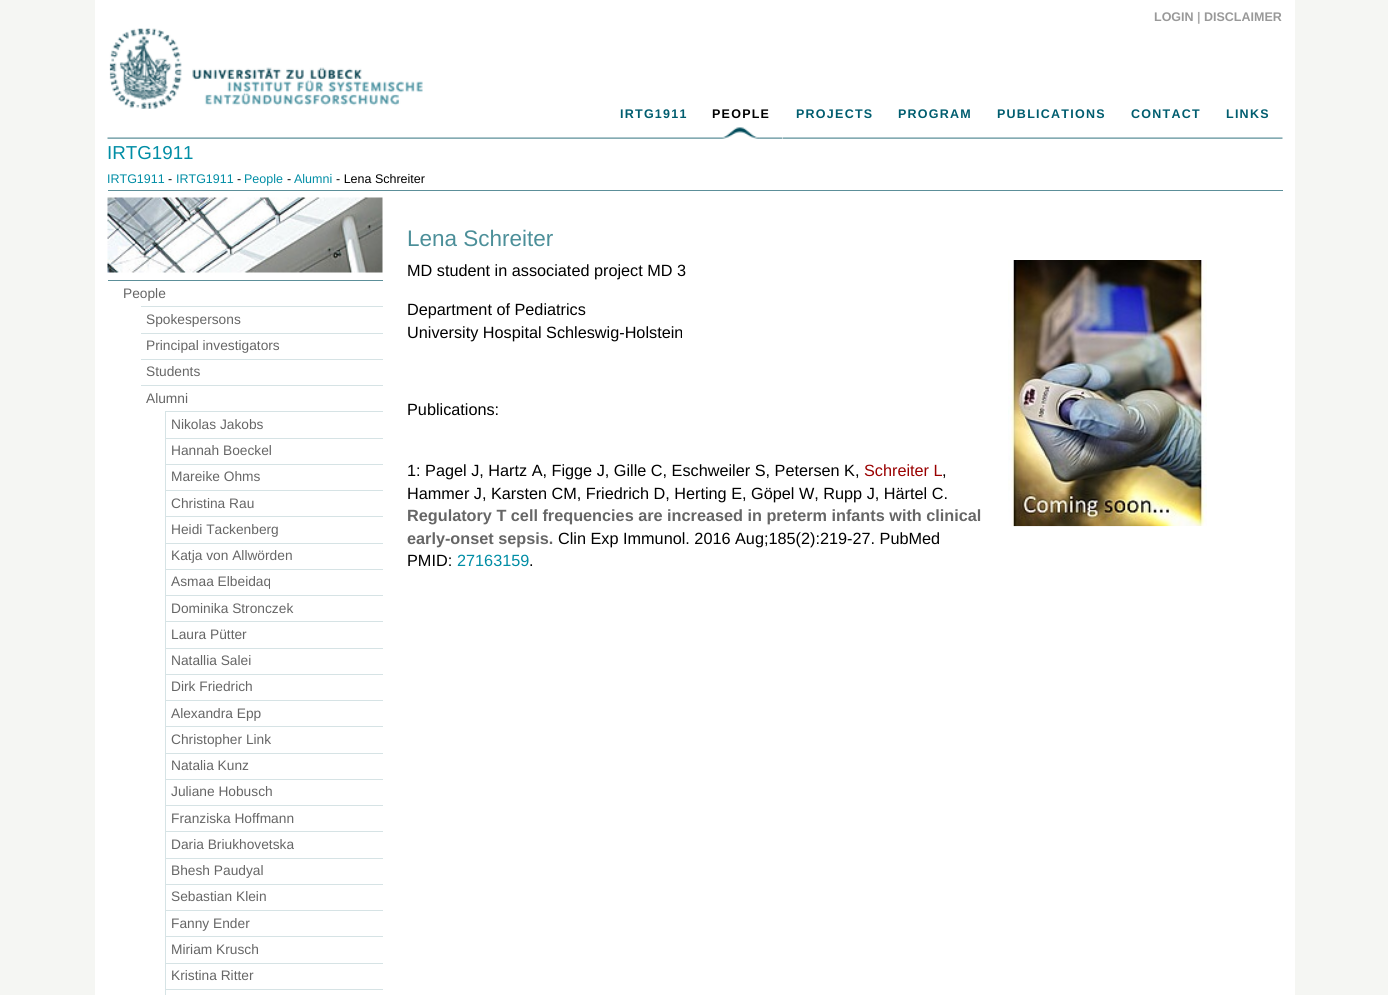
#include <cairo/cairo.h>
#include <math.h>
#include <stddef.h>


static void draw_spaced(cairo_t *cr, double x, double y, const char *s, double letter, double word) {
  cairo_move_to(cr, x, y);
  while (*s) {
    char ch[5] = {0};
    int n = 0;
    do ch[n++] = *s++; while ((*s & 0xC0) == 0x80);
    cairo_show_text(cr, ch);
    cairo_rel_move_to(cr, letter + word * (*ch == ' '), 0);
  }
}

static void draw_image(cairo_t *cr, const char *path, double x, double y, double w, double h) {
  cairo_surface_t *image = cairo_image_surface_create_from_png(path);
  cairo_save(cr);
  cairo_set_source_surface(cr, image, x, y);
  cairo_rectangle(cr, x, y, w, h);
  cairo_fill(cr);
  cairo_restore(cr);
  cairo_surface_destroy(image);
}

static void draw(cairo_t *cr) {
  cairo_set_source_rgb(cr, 245 / 255.0, 246 / 255.0, 243 / 255.0);
  cairo_paint(cr);
  cairo_set_source_rgb(cr, 1, 1, 1);
  cairo_rectangle(cr, 95, 0, 1200, 995);
  cairo_fill(cr);
  draw_image(cr, "images/1.png", 109, 28, 314, 81);
  draw_image(cr, "images/2.png", 107, 137, 1176, 2);
  cairo_rectangle(cr, 700, 137, 83, 2);
  cairo_fill(cr);
  draw_image(cr, "images/3.png", 700, 127, 83, 12);
  cairo_set_source_rgb(cr, 92 / 255.0, 143 / 255.0, 153 / 255.0);
  cairo_rectangle(cr, 108, 190, 1175, 1);
  cairo_fill(cr);
  draw_image(cr, "images/4.png", 107, 197, 276, 76);
  cairo_rectangle(cr, 108, 280, 275, 1);
  cairo_fill(cr);
  cairo_set_source_rgb(cr, 214 / 255.0, 227 / 255.0, 229 / 255.0);
  cairo_rectangle(cr, 141, 306, 242, 1);
  cairo_fill(cr);
  cairo_rectangle(cr, 141, 333, 242, 1);
  cairo_fill(cr);
  cairo_rectangle(cr, 141, 359, 242, 1);
  cairo_fill(cr);
  cairo_rectangle(cr, 141, 385, 242, 1);
  cairo_fill(cr);
  cairo_rectangle(cr, 165, 411, 218, 1);
  cairo_fill(cr);
  cairo_rectangle(cr, 165, 411, 1, 27);
  cairo_fill(cr);
  cairo_rectangle(cr, 165, 438, 218, 1);
  cairo_fill(cr);
  cairo_rectangle(cr, 165, 438, 1, 26);
  cairo_fill(cr);
  cairo_rectangle(cr, 165, 464, 218, 1);
  cairo_fill(cr);
  cairo_rectangle(cr, 165, 464, 1, 26);
  cairo_fill(cr);
  cairo_rectangle(cr, 165, 490, 218, 1);
  cairo_fill(cr);
  cairo_rectangle(cr, 165, 490, 1, 26);
  cairo_fill(cr);
  cairo_rectangle(cr, 165, 516, 218, 1);
  cairo_fill(cr);
  cairo_rectangle(cr, 165, 516, 1, 27);
  cairo_fill(cr);
  cairo_rectangle(cr, 165, 543, 218, 1);
  cairo_fill(cr);
  cairo_rectangle(cr, 165, 543, 1, 26);
  cairo_fill(cr);
  cairo_rectangle(cr, 165, 569, 218, 1);
  cairo_fill(cr);
  cairo_rectangle(cr, 165, 569, 1, 26);
  cairo_fill(cr);
  cairo_rectangle(cr, 165, 595, 218, 1);
  cairo_fill(cr);
  cairo_rectangle(cr, 165, 595, 1, 26);
  cairo_fill(cr);
  cairo_rectangle(cr, 165, 621, 218, 1);
  cairo_fill(cr);
  cairo_rectangle(cr, 165, 621, 1, 27);
  cairo_fill(cr);
  cairo_rectangle(cr, 165, 648, 218, 1);
  cairo_fill(cr);
  cairo_rectangle(cr, 165, 648, 1, 26);
  cairo_fill(cr);
  cairo_rectangle(cr, 165, 674, 218, 1);
  cairo_fill(cr);
  cairo_rectangle(cr, 165, 674, 1, 26);
  cairo_fill(cr);
  cairo_rectangle(cr, 165, 700, 218, 1);
  cairo_fill(cr);
  cairo_rectangle(cr, 165, 700, 1, 26);
  cairo_fill(cr);
  cairo_rectangle(cr, 165, 726, 218, 1);
  cairo_fill(cr);
  cairo_rectangle(cr, 165, 726, 1, 27);
  cairo_fill(cr);
  cairo_rectangle(cr, 165, 753, 218, 1);
  cairo_fill(cr);
  cairo_rectangle(cr, 165, 753, 1, 26);
  cairo_fill(cr);
  cairo_rectangle(cr, 165, 779, 218, 1);
  cairo_fill(cr);
  cairo_rectangle(cr, 165, 779, 1, 26);
  cairo_fill(cr);
  cairo_rectangle(cr, 165, 805, 218, 1);
  cairo_fill(cr);
  cairo_rectangle(cr, 165, 805, 1, 26);
  cairo_fill(cr);
  cairo_rectangle(cr, 165, 831, 218, 1);
  cairo_fill(cr);
  cairo_rectangle(cr, 165, 831, 1, 27);
  cairo_fill(cr);
  cairo_rectangle(cr, 165, 858, 218, 1);
  cairo_fill(cr);
  cairo_rectangle(cr, 165, 858, 1, 26);
  cairo_fill(cr);
  cairo_rectangle(cr, 165, 884, 218, 1);
  cairo_fill(cr);
  cairo_rectangle(cr, 165, 884, 1, 26);
  cairo_fill(cr);
  cairo_rectangle(cr, 165, 910, 218, 1);
  cairo_fill(cr);
  cairo_rectangle(cr, 165, 910, 1, 26);
  cairo_fill(cr);
  cairo_rectangle(cr, 165, 936, 218, 1);
  cairo_fill(cr);
  cairo_rectangle(cr, 165, 936, 1, 27);
  cairo_fill(cr);
  cairo_rectangle(cr, 165, 963, 218, 1);
  cairo_fill(cr);
  cairo_rectangle(cr, 165, 963, 1, 26);
  cairo_fill(cr);
  cairo_rectangle(cr, 165, 989, 218, 1);
  cairo_fill(cr);
  cairo_rectangle(cr, 165, 989, 1, 6);
  cairo_fill(cr);
  draw_image(cr, "images/5.png", 1008, 260, 199, 267);
  cairo_select_font_face(cr, "Liberation Sans", CAIRO_FONT_SLANT_NORMAL, CAIRO_FONT_WEIGHT_BOLD);
  cairo_set_font_size(cr, 12.5);
  cairo_set_source_rgb(cr, 153 / 255.0, 153 / 255.0, 153 / 255.0);
  cairo_move_to(cr, 1154, 21);
  cairo_show_text(cr, "LOGIN");
  cairo_set_source_rgb(cr, 170 / 255.0, 170 / 255.0, 170 / 255.0);
  cairo_move_to(cr, 1197, 21);
  cairo_show_text(cr, "|");
  cairo_set_source_rgb(cr, 153 / 255.0, 153 / 255.0, 153 / 255.0);
  cairo_move_to(cr, 1204, 21);
  cairo_show_text(cr, "DISCLAIMER");
  cairo_set_source_rgb(cr, 0, 93 / 255.0, 111 / 255.0);
  draw_spaced(cr, 620, 118, "IRTG1911", 1.25, 0);
  cairo_set_source_rgb(cr, 0, 0, 0);
  draw_spaced(cr, 712, 118, "PEOPLE", 1.25, 0);
  cairo_set_source_rgb(cr, 0, 93 / 255.0, 111 / 255.0);
  draw_spaced(cr, 796, 118, "PROJECTS", 1.25, 0);
  draw_spaced(cr, 898, 118, "PROGRAM", 1.25, 0);
  draw_spaced(cr, 997, 118, "PUBLICATIONS", 1.25, 0);
  draw_spaced(cr, 1131, 118, "CONTACT", 1.25, 0);
  draw_spaced(cr, 1226, 118, "LINKS", 1.25, 0);
  cairo_select_font_face(cr, "Liberation Sans", CAIRO_FONT_SLANT_NORMAL, CAIRO_FONT_WEIGHT_NORMAL);
  cairo_set_font_size(cr, 18.75);
  cairo_set_source_rgb(cr, 0, 141 / 255.0, 165 / 255.0);
  cairo_move_to(cr, 107, 159);
  cairo_show_text(cr, "IRTG1911");
  cairo_set_font_size(cr, 12.5);
  cairo_move_to(cr, 107, 183);
  cairo_show_text(cr, "IRTG1911");
  cairo_set_source_rgb(cr, 0, 0, 0);
  cairo_move_to(cr, 168, 183);
  cairo_show_text(cr, "-");
  cairo_set_source_rgb(cr, 0, 141 / 255.0, 165 / 255.0);
  cairo_move_to(cr, 176, 183);
  cairo_show_text(cr, "IRTG1911");
  cairo_set_source_rgb(cr, 0, 0, 0);
  cairo_move_to(cr, 237, 183);
  cairo_show_text(cr, "-");
  cairo_set_source_rgb(cr, 0, 141 / 255.0, 165 / 255.0);
  cairo_move_to(cr, 244, 183);
  cairo_show_text(cr, "People");
  cairo_set_source_rgb(cr, 0, 0, 0);
  cairo_move_to(cr, 287, 183);
  cairo_show_text(cr, "-");
  cairo_set_source_rgb(cr, 0, 141 / 255.0, 165 / 255.0);
  cairo_move_to(cr, 294, 183);
  cairo_show_text(cr, "Alumni");
  cairo_set_source_rgb(cr, 0, 0, 0);
  cairo_move_to(cr, 336, 183);
  cairo_show_text(cr, "- Lena Schreiter");
  cairo_set_font_size(cr, 13.75);
  cairo_set_source_rgb(cr, 102 / 255.0, 102 / 255.0, 102 / 255.0);
  cairo_move_to(cr, 123, 298);
  cairo_show_text(cr, "People");
  cairo_move_to(cr, 146, 324);
  cairo_show_text(cr, "Spokespersons");
  cairo_move_to(cr, 146, 350);
  cairo_show_text(cr, "Principal investigators");
  cairo_move_to(cr, 146, 376);
  cairo_show_text(cr, "Students");
  cairo_move_to(cr, 146, 403);
  cairo_show_text(cr, "Alumni");
  cairo_move_to(cr, 171, 429);
  cairo_show_text(cr, "Nikolas Jakobs");
  cairo_move_to(cr, 171, 455);
  cairo_show_text(cr, "Hannah Boeckel");
  cairo_move_to(cr, 171, 481);
  cairo_show_text(cr, "Mareike Ohms");
  cairo_move_to(cr, 171, 508);
  cairo_show_text(cr, "Christina Rau");
  cairo_move_to(cr, 171, 534);
  cairo_show_text(cr, "Heidi Tackenberg");
  cairo_move_to(cr, 171, 560);
  cairo_show_text(cr, "Katja von Allwörden");
  cairo_move_to(cr, 171, 586);
  cairo_show_text(cr, "Asmaa Elbeidaq");
  cairo_move_to(cr, 171, 613);
  cairo_show_text(cr, "Dominika Stronczek");
  cairo_move_to(cr, 171, 639);
  cairo_show_text(cr, "Laura Pütter");
  cairo_move_to(cr, 171, 665);
  cairo_show_text(cr, "Natallia Salei");
  cairo_move_to(cr, 171, 691);
  cairo_show_text(cr, "Dirk Friedrich");
  cairo_move_to(cr, 171, 718);
  cairo_show_text(cr, "Alexandra Epp");
  cairo_move_to(cr, 171, 744);
  cairo_show_text(cr, "Christopher Link");
  cairo_move_to(cr, 171, 770);
  cairo_show_text(cr, "Natalia Kunz");
  cairo_move_to(cr, 171, 796);
  cairo_show_text(cr, "Juliane Hobusch");
  cairo_move_to(cr, 171, 823);
  cairo_show_text(cr, "Franziska Hoffmann");
  cairo_move_to(cr, 171, 849);
  cairo_show_text(cr, "Daria Briukhovetska");
  cairo_move_to(cr, 171, 875);
  cairo_show_text(cr, "Bhesh Paudyal");
  cairo_move_to(cr, 171, 901);
  cairo_show_text(cr, "Sebastian Klein");
  cairo_move_to(cr, 171, 928);
  cairo_show_text(cr, "Fanny Ender");
  cairo_move_to(cr, 171, 954);
  cairo_show_text(cr, "Miriam Krusch");
  cairo_move_to(cr, 171, 980);
  cairo_show_text(cr, "Kristina Ritter");
  cairo_set_font_size(cr, 22.5);
  cairo_set_source_rgb(cr, 76 / 255.0, 143 / 255.0, 153 / 255.0);
  cairo_move_to(cr, 407, 246);
  cairo_show_text(cr, "Lena Schreiter");
  cairo_set_font_size(cr, 16.25);
  cairo_set_source_rgb(cr, 0, 0, 0);
  cairo_move_to(cr, 407, 276);
  cairo_show_text(cr, "MD student in associated project MD 3");
  cairo_move_to(cr, 407, 315);
  cairo_show_text(cr, "Department of Pediatrics");
  cairo_move_to(cr, 407, 338);
  cairo_show_text(cr, "University Hospital Schleswig-Holstein");
  cairo_move_to(cr, 407, 415);
  cairo_show_text(cr, "Publications:");
  cairo_move_to(cr, 407, 476);
  cairo_show_text(cr, "1: Pagel J, Hartz A, Figge J, Gille C, Eschweiler S, Petersen K,");
  cairo_set_source_rgb(cr, 153 / 255.0, 0, 0);
  cairo_move_to(cr, 864, 476);
  cairo_show_text(cr, "Schreiter L");
  cairo_set_source_rgb(cr, 0, 0, 0);
  cairo_move_to(cr, 942, 476);
  cairo_show_text(cr, ",");
  cairo_move_to(cr, 407, 499);
  cairo_show_text(cr, "Hammer J, Karsten CM, Friedrich D, Herting E, Göpel W, Rupp J, Härtel C.");
  cairo_select_font_face(cr, "Liberation Sans", CAIRO_FONT_SLANT_NORMAL, CAIRO_FONT_WEIGHT_BOLD);
  cairo_set_source_rgb(cr, 102 / 255.0, 102 / 255.0, 102 / 255.0);
  cairo_move_to(cr, 407, 521);
  cairo_show_text(cr, "Regulatory T cell frequencies are increased in preterm infants with clinical");
  cairo_move_to(cr, 407, 544);
  cairo_show_text(cr, "early-onset sepsis.");
  cairo_select_font_face(cr, "Liberation Sans", CAIRO_FONT_SLANT_NORMAL, CAIRO_FONT_WEIGHT_NORMAL);
  cairo_set_source_rgb(cr, 0, 0, 0);
  cairo_move_to(cr, 558, 544);
  cairo_show_text(cr, "Clin Exp Immunol. 2016 Aug;185(2):219-27. PubMed");
  cairo_move_to(cr, 407, 566);
  cairo_show_text(cr, "PMID:");
  cairo_set_source_rgb(cr, 0, 141 / 255.0, 165 / 255.0);
  cairo_move_to(cr, 457, 566);
  cairo_show_text(cr, "27163159");
  cairo_set_source_rgb(cr, 0, 0, 0);
  cairo_move_to(cr, 529, 566);
  cairo_show_text(cr, ".");
}

int main(void) {
  cairo_surface_t *surface = cairo_image_surface_create(CAIRO_FORMAT_RGB24, 1388, 995);
  cairo_t *cr = cairo_create(surface);
  cairo_font_options_t *options = cairo_font_options_create();
  cairo_font_options_set_hint_metrics(options, CAIRO_HINT_METRICS_OFF);
  cairo_font_options_set_hint_style(options, CAIRO_HINT_STYLE_NONE);
  cairo_set_font_options(cr, options);
  cairo_set_miter_limit(cr, 4);
  draw(cr);
  cairo_surface_write_to_png(surface, "out.png");
  cairo_font_options_destroy(options);
  cairo_destroy(cr);
  cairo_surface_destroy(surface);
  return 0;
}
